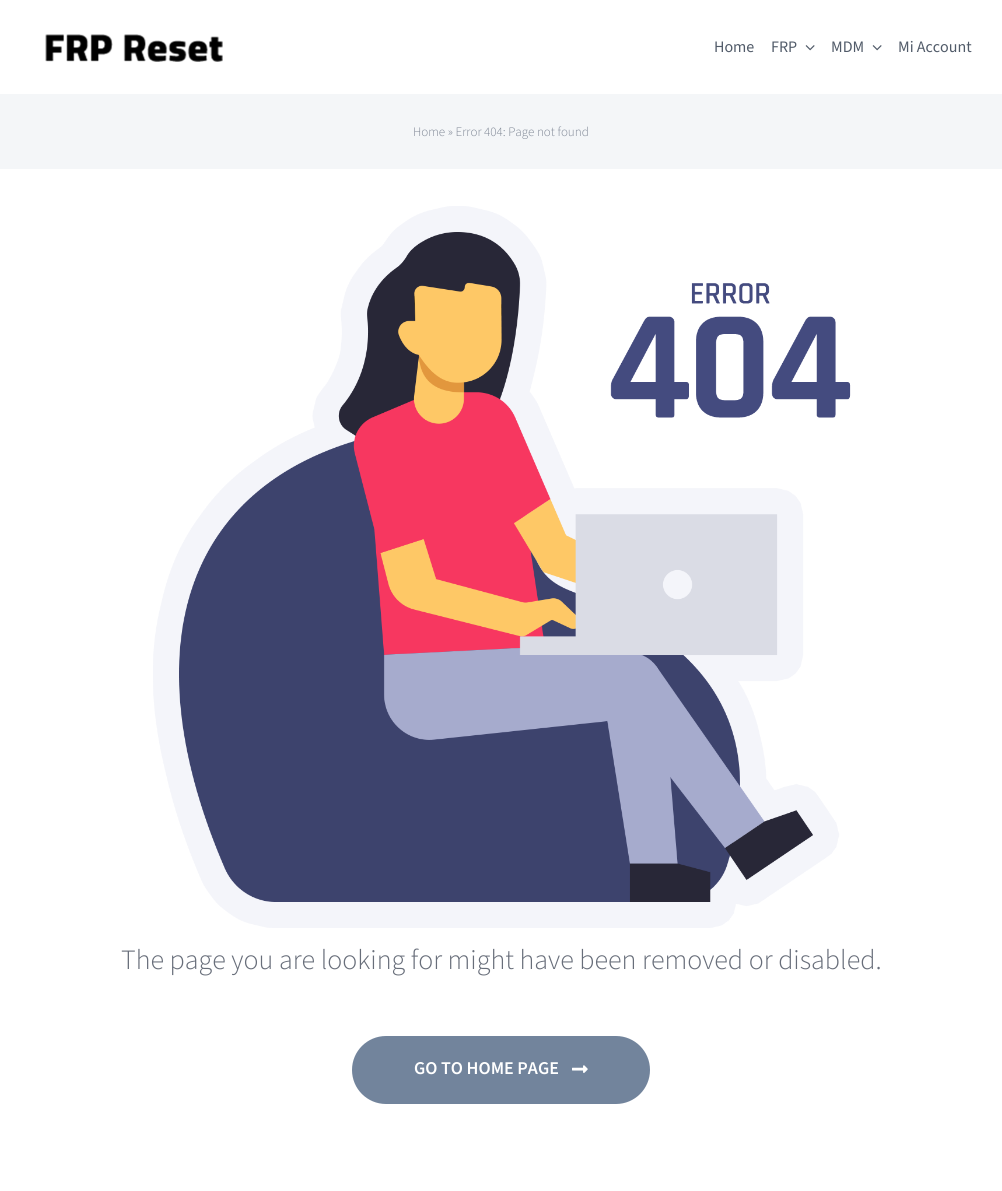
#include <cairo/cairo.h>
#include <math.h>
#include <stddef.h>


static void rounded_rect(cairo_t *cr, double x, double y, double w, double h, double r) {
  cairo_new_sub_path(cr);
  cairo_arc(cr, x + w - r, y + h - r, r, 0, M_PI / 2);
  cairo_arc(cr, x + r, y + h - r, r, M_PI / 2, M_PI);
  cairo_arc(cr, x + r, y + r, r, M_PI, 1.5 * M_PI);
  cairo_arc(cr, x + w - r, y + r, r, 1.5 * M_PI, 2 * M_PI);
  cairo_close_path(cr);
}

static void draw_image(cairo_t *cr, const char *path, double x, double y, double w, double h) {
  cairo_surface_t *image = cairo_image_surface_create_from_png(path);
  cairo_save(cr);
  cairo_set_source_surface(cr, image, x, y);
  cairo_rectangle(cr, x, y, w, h);
  cairo_fill(cr);
  cairo_restore(cr);
  cairo_surface_destroy(image);
}

static void draw(cairo_t *cr) {
  cairo_set_source_rgb(cr, 1, 1, 1);
  cairo_paint(cr);
  draw_image(cr, "images/1.png", 45, 34, 178, 28);
  draw_image(cr, "images/2.png", 805, 45, 10, 6);
  draw_image(cr, "images/2.png", 872, 45, 10, 6);
  cairo_set_source_rgb(cr, 244 / 255.0, 246 / 255.0, 248 / 255.0);
  cairo_rectangle(cr, 0, 94, 1002, 75);
  cairo_fill(cr);
  draw_image(cr, "images/3.png", 153, 206, 698, 722);
  cairo_set_source_rgb(cr, 114 / 255.0, 132 / 255.0, 156 / 255.0);
  rounded_rect(cr, 353, 1037, 296, 66, 33);
  cairo_fill_preserve(cr);
  cairo_stroke(cr);
  draw_image(cr, "images/4.png", 572, 1065, 16, 8);
  cairo_select_font_face(cr, "Source Sans 3", CAIRO_FONT_SLANT_NORMAL, CAIRO_FONT_WEIGHT_NORMAL);
  cairo_set_font_size(cr, 16);
  cairo_set_source_rgb(cr, 81 / 255.0, 91 / 255.0, 105 / 255.0);
  cairo_move_to(cr, 714, 52);
  cairo_show_text(cr, "Home");
  cairo_move_to(cr, 771, 52);
  cairo_show_text(cr, "FRP");
  cairo_move_to(cr, 831, 52);
  cairo_show_text(cr, "MDM");
  cairo_move_to(cr, 898, 52);
  cairo_show_text(cr, "Mi Account");
  cairo_select_font_face(cr, "Source Sans 3 Light", CAIRO_FONT_SLANT_NORMAL, CAIRO_FONT_WEIGHT_NORMAL);
  cairo_set_font_size(cr, 13);
  cairo_set_source_rgb(cr, 127 / 255.0, 135 / 255.0, 149 / 255.0);
  cairo_move_to(cr, 413, 136);
  cairo_show_text(cr, "Home » Error 404: Page not found");
  cairo_set_font_size(cr, 28);
  cairo_set_source_rgb(cr, 104 / 255.0, 110 / 255.0, 122 / 255.0);
  cairo_move_to(cr, 121, 969);
  cairo_show_text(cr, "The page you are looking for might have been removed or disabled.");
  cairo_select_font_face(cr, "Source Sans 3 SemiBold", CAIRO_FONT_SLANT_NORMAL, CAIRO_FONT_WEIGHT_NORMAL);
  cairo_set_font_size(cr, 18);
  cairo_set_source_rgb(cr, 1, 1, 1);
  cairo_move_to(cr, 414, 1074);
  cairo_show_text(cr, "GO TO HOME PAGE");
}

int main(void) {
  cairo_surface_t *surface = cairo_image_surface_create(CAIRO_FORMAT_RGB24, 1002, 1191);
  cairo_t *cr = cairo_create(surface);
  cairo_font_options_t *options = cairo_font_options_create();
  cairo_font_options_set_hint_metrics(options, CAIRO_HINT_METRICS_OFF);
  cairo_font_options_set_hint_style(options, CAIRO_HINT_STYLE_NONE);
  cairo_set_font_options(cr, options);
  cairo_set_miter_limit(cr, 4);
  draw(cr);
  cairo_surface_write_to_png(surface, "out.png");
  cairo_font_options_destroy(options);
  cairo_destroy(cr);
  cairo_surface_destroy(surface);
  return 0;
}
